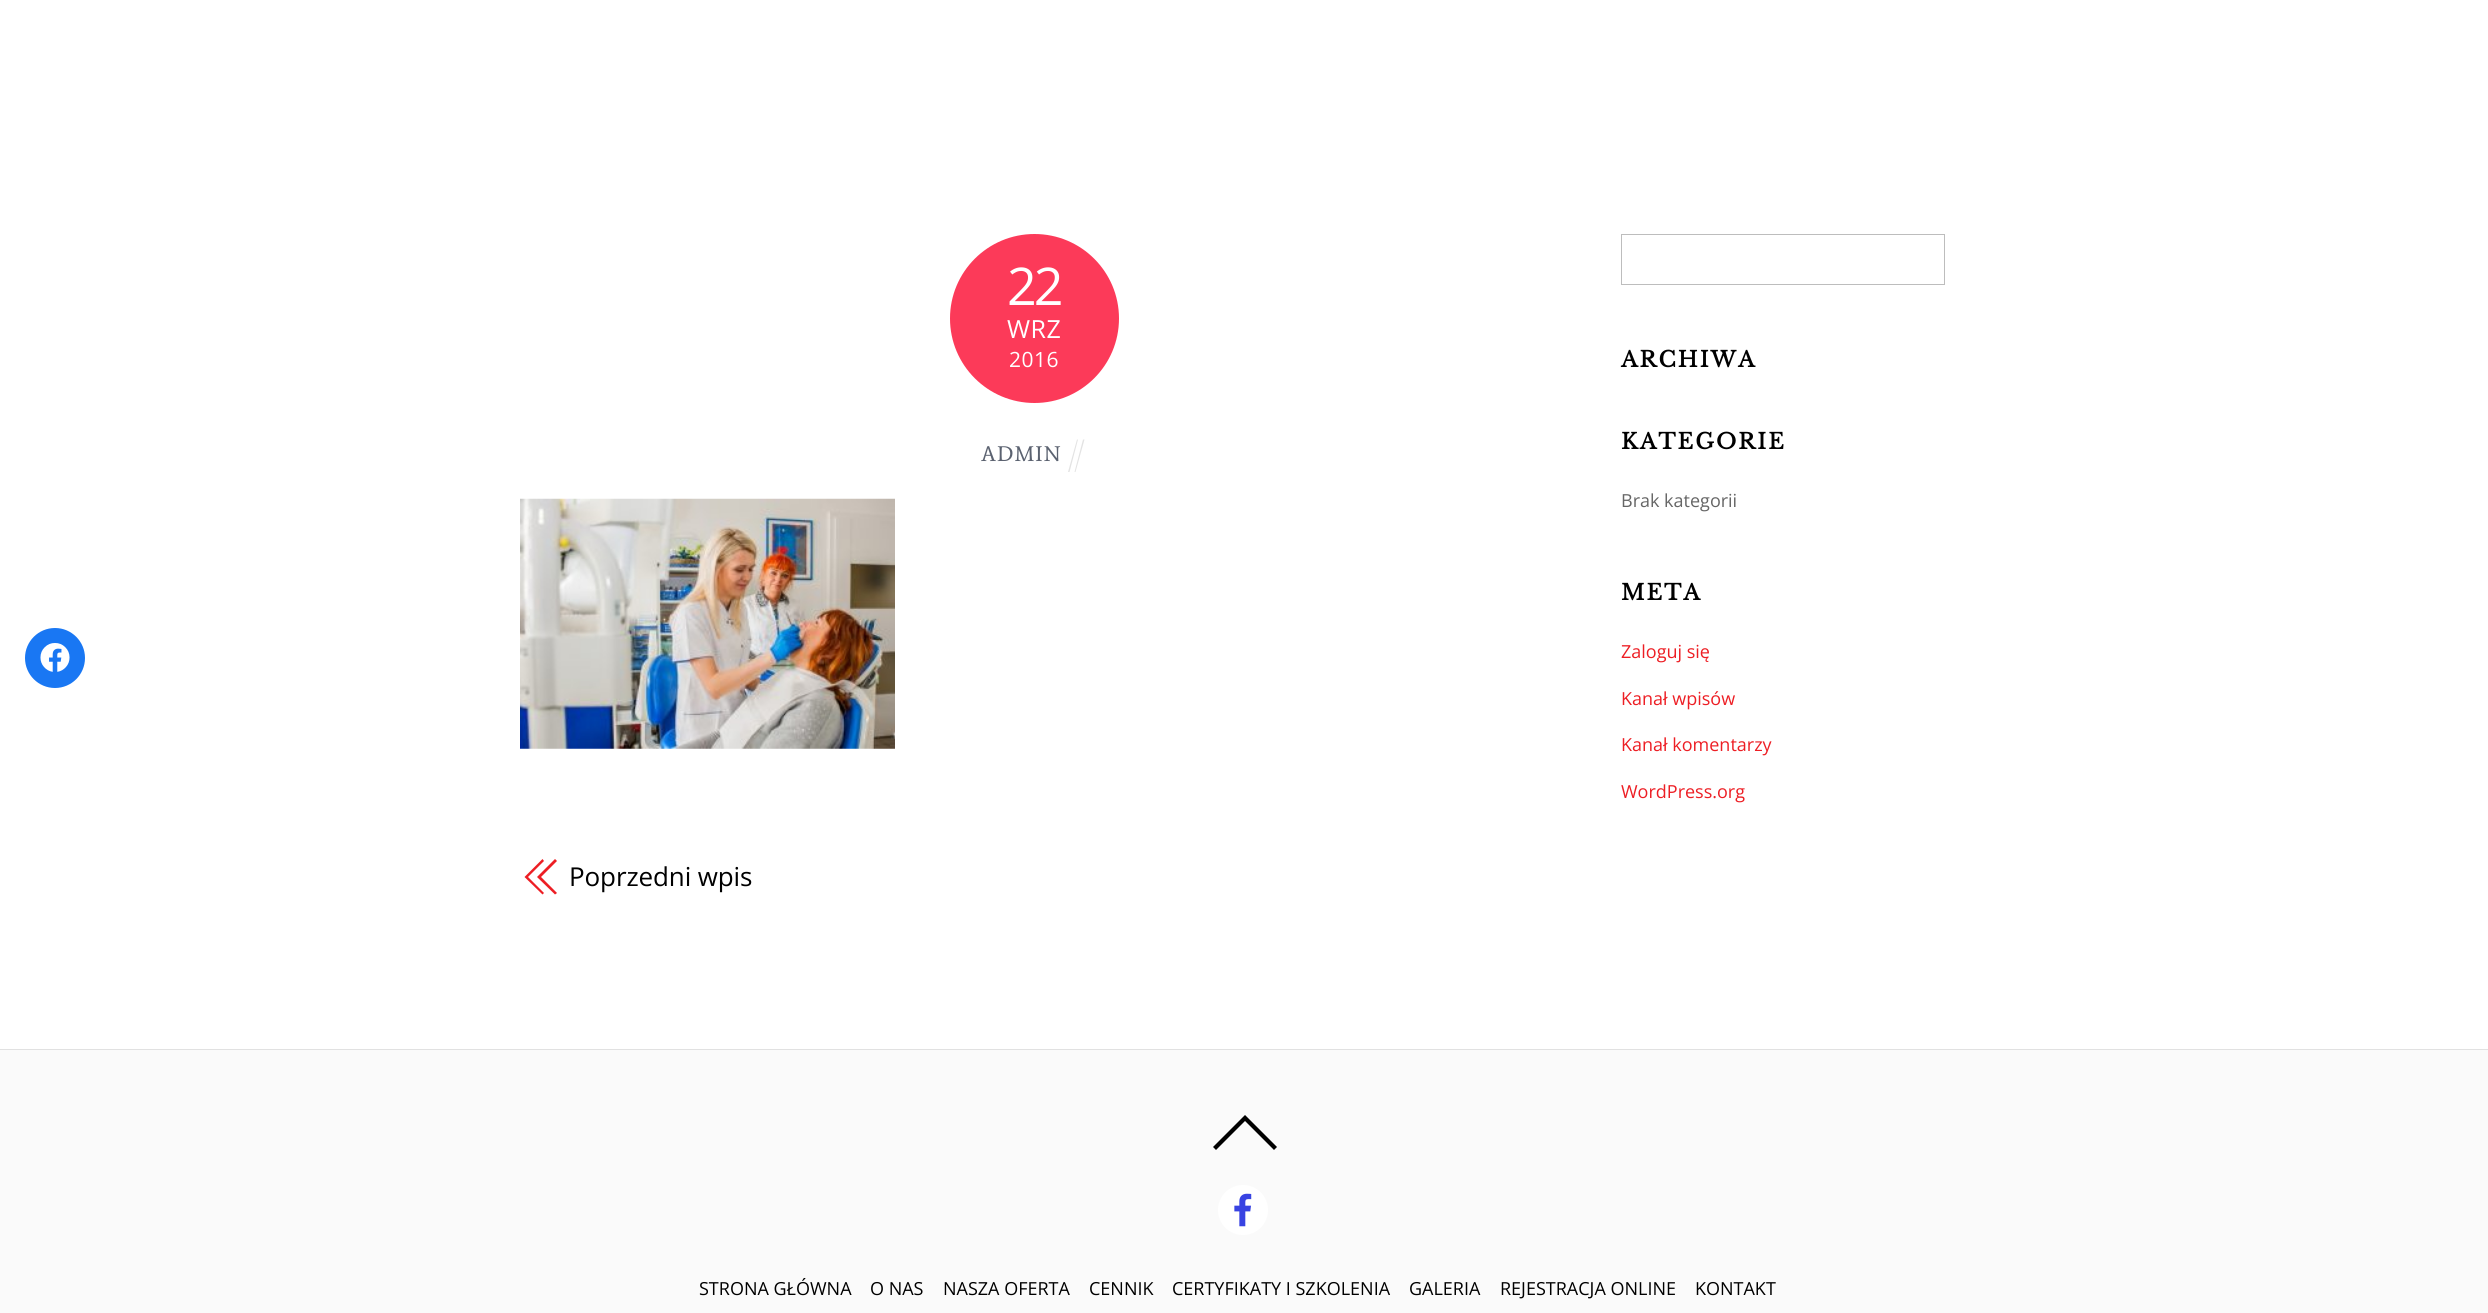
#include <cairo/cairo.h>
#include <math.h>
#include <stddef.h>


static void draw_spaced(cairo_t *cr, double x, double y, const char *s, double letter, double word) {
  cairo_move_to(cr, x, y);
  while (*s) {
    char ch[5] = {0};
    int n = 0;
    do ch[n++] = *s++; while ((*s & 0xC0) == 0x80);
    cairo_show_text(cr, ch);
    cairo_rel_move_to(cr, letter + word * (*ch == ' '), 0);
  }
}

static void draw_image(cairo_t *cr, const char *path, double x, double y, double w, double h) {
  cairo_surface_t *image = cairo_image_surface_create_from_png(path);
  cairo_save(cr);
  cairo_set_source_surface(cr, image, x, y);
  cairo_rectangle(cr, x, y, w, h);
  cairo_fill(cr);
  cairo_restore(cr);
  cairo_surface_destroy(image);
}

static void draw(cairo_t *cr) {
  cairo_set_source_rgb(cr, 1, 1, 1);
  cairo_paint(cr);
  cairo_set_source_rgb(cr, 25 / 255.0, 119 / 255.0, 243 / 255.0);
  cairo_arc(cr, 55, 658, 30, 0, 2 * M_PI);
  cairo_fill(cr);
  draw_image(cr, "images/1.png", 40, 643, 30, 29);
  cairo_set_source_rgb(cr, 252 / 255.0, 58 / 255.0, 89 / 255.0);
  cairo_arc(cr, 1034.5, 318.5, 84.5, 0, 2 * M_PI);
  cairo_fill(cr);
  cairo_set_source_rgb(cr, 227 / 255.0, 227 / 255.0, 227 / 255.0);
  cairo_new_path(cr);
  cairo_move_to(cr, 1083, 439.5);
  cairo_line_to(cr, 1084.5, 439.5);
  cairo_line_to(cr, 1075.5, 472);
  cairo_line_to(cr, 1074.5, 472);
  cairo_close_path(cr);
  cairo_fill(cr);
  cairo_new_path(cr);
  cairo_move_to(cr, 1077, 439.5);
  cairo_line_to(cr, 1078, 439.5);
  cairo_line_to(cr, 1069.5, 472);
  cairo_line_to(cr, 1068, 472);
  cairo_close_path(cr);
  cairo_fill(cr);
  draw_image(cr, "images/2.png", 520, 498, 375, 251);
  cairo_set_source_rgb(cr, 237 / 255.0, 30 / 255.0, 36 / 255.0);
  cairo_new_path(cr);
  cairo_move_to(cr, 541, 877);
  cairo_line_to(cr, 557, 893);
  cairo_line_to(cr, 555, 894.5);
  cairo_line_to(cr, 537, 877);
  cairo_line_to(cr, 555, 859);
  cairo_line_to(cr, 557, 861);
  cairo_close_path(cr);
  cairo_move_to(cr, 544, 861);
  cairo_line_to(cr, 542.5, 859);
  cairo_line_to(cr, 524.5, 877);
  cairo_line_to(cr, 542.5, 894.5);
  cairo_line_to(cr, 544, 893);
  cairo_line_to(cr, 528, 877);
  cairo_close_path(cr);
  cairo_fill(cr);
  cairo_rectangle(cr, 1621.5, 234.5, 323, 50);
  cairo_set_source_rgb(cr, 189 / 255.0, 189 / 255.0, 189 / 255.0);
  cairo_set_line_width(cr, 1);
  cairo_stroke(cr);
  cairo_set_source_rgb(cr, 250 / 255.0, 250 / 255.0, 250 / 255.0);
  cairo_rectangle(cr, 0, 1050, 2488, 263);
  cairo_fill(cr);
  cairo_set_source_rgb(cr, 225 / 255.0, 225 / 255.0, 225 / 255.0);
  cairo_rectangle(cr, 0, 1049, 2488, 1);
  cairo_fill(cr);
  cairo_set_source_rgb(cr, 0, 0, 0);
  cairo_new_path(cr);
  cairo_move_to(cr, 1277, 1147);
  cairo_line_to(cr, 1274, 1150);
  cairo_line_to(cr, 1245, 1121);
  cairo_line_to(cr, 1216, 1150);
  cairo_line_to(cr, 1213, 1147);
  cairo_line_to(cr, 1245, 1115);
  cairo_close_path(cr);
  cairo_fill(cr);
  cairo_set_source_rgb(cr, 1, 1, 1);
  cairo_arc(cr, 1243, 1210, 25, 0, 2 * M_PI);
  cairo_fill(cr);
  draw_image(cr, "images/3.png", 1234, 1193, 18, 34);
  cairo_select_font_face(cr, "Open Sans", CAIRO_FONT_SLANT_NORMAL, CAIRO_FONT_WEIGHT_NORMAL);
  cairo_set_font_size(cr, 52);
  draw_spaced(cr, 1007, 305, "22", -3, 0);
  cairo_set_font_size(cr, 25);
  draw_spaced(cr, 1007, 338, "WRZ", 0.5, 0);
  cairo_set_font_size(cr, 21);
  draw_spaced(cr, 1009, 367, "2016", 0.5, 0);
  cairo_select_font_face(cr, "Average", CAIRO_FONT_SLANT_NORMAL, CAIRO_FONT_WEIGHT_NORMAL);
  cairo_set_font_size(cr, 21.5);
  cairo_set_source_rgb(cr, 91 / 255.0, 98 / 255.0, 112 / 255.0);
  draw_spaced(cr, 981, 461, "ADMIN", 1, 0);
  cairo_select_font_face(cr, "Open Sans", CAIRO_FONT_SLANT_NORMAL, CAIRO_FONT_WEIGHT_NORMAL);
  cairo_set_font_size(cr, 26);
  cairo_set_source_rgb(cr, 0, 0, 0);
  draw_spaced(cr, 569, 886, "Poprzedni wpis", -0.1, 0);
  cairo_select_font_face(cr, "Libre Baskerville", CAIRO_FONT_SLANT_NORMAL, CAIRO_FONT_WEIGHT_BOLD);
  cairo_set_font_size(cr, 21.5);
  draw_spaced(cr, 1621, 367, "ARCHIWA", 2, 0);
  draw_spaced(cr, 1621, 449, "KATEGORIE", 2, 0);
  cairo_select_font_face(cr, "Open Sans", CAIRO_FONT_SLANT_NORMAL, CAIRO_FONT_WEIGHT_NORMAL);
  cairo_set_font_size(cr, 18);
  cairo_set_source_rgb(cr, 102 / 255.0, 102 / 255.0, 102 / 255.0);
  cairo_move_to(cr, 1621, 507);
  cairo_show_text(cr, "Brak kategorii");
  cairo_select_font_face(cr, "Libre Baskerville", CAIRO_FONT_SLANT_NORMAL, CAIRO_FONT_WEIGHT_BOLD);
  cairo_set_font_size(cr, 21.5);
  cairo_set_source_rgb(cr, 0, 0, 0);
  draw_spaced(cr, 1621, 600, "META", 2, 0);
  cairo_select_font_face(cr, "Open Sans", CAIRO_FONT_SLANT_NORMAL, CAIRO_FONT_WEIGHT_NORMAL);
  cairo_set_font_size(cr, 18);
  cairo_set_source_rgb(cr, 237 / 255.0, 30 / 255.0, 36 / 255.0);
  cairo_move_to(cr, 1621, 658);
  cairo_show_text(cr, "Zaloguj się");
  cairo_move_to(cr, 1621, 705);
  cairo_show_text(cr, "Kanał wpisów");
  cairo_move_to(cr, 1621, 751);
  cairo_show_text(cr, "Kanał komentarzy");
  cairo_move_to(cr, 1621, 798);
  cairo_show_text(cr, "WordPress.org");
  cairo_set_source_rgb(cr, 0, 0, 0);
  cairo_move_to(cr, 699, 1295);
  cairo_show_text(cr, "STRONA GŁÓWNA");
  cairo_move_to(cr, 870, 1295);
  cairo_show_text(cr, "O NAS");
  cairo_move_to(cr, 943, 1295);
  cairo_show_text(cr, "NASZA OFERTA");
  cairo_move_to(cr, 1089, 1295);
  cairo_show_text(cr, "CENNIK");
  cairo_move_to(cr, 1172, 1295);
  cairo_show_text(cr, "CERTYFIKATY I SZKOLENIA");
  cairo_move_to(cr, 1409, 1295);
  cairo_show_text(cr, "GALERIA");
  cairo_move_to(cr, 1500, 1295);
  cairo_show_text(cr, "REJESTRACJA ONLINE");
  cairo_move_to(cr, 1695, 1295);
  cairo_show_text(cr, "KONTAKT");
}

int main(void) {
  cairo_surface_t *surface = cairo_image_surface_create(CAIRO_FORMAT_RGB24, 2488, 1313);
  cairo_t *cr = cairo_create(surface);
  cairo_font_options_t *options = cairo_font_options_create();
  cairo_font_options_set_hint_metrics(options, CAIRO_HINT_METRICS_OFF);
  cairo_font_options_set_hint_style(options, CAIRO_HINT_STYLE_NONE);
  cairo_set_font_options(cr, options);
  cairo_set_miter_limit(cr, 4);
  draw(cr);
  cairo_surface_write_to_png(surface, "out.png");
  cairo_font_options_destroy(options);
  cairo_destroy(cr);
  cairo_surface_destroy(surface);
  return 0;
}
